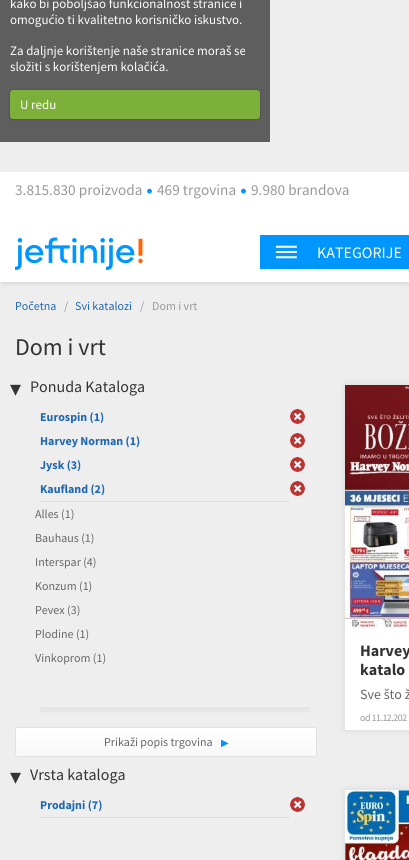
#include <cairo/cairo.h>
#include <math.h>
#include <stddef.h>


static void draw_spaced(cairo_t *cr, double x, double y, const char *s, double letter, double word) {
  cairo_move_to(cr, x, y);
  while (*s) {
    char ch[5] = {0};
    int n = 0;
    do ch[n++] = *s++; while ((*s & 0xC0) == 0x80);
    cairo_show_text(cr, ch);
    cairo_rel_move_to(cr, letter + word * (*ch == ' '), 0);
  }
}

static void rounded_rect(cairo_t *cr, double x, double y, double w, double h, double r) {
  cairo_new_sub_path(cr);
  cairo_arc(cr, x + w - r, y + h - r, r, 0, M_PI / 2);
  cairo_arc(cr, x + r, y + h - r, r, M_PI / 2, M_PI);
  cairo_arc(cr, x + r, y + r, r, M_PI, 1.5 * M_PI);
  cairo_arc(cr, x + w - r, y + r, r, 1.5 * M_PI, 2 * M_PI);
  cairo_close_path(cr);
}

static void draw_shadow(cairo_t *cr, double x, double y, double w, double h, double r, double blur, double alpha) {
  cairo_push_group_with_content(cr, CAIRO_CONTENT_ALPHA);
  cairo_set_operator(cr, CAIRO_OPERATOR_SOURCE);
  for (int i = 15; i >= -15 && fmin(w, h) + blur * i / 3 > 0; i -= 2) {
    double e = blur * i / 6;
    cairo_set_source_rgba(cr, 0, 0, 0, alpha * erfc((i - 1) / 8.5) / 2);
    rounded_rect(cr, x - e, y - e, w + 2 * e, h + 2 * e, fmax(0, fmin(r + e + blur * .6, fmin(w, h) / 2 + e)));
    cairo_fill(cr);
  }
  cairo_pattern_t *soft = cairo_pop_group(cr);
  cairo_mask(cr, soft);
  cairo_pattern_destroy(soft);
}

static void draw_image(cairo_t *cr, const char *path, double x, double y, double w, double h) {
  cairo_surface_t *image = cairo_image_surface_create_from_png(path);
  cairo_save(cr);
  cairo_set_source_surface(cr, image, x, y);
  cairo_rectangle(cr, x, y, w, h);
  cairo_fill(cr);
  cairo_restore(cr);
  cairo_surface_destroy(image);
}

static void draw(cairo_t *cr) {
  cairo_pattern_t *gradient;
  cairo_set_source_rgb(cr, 238 / 255.0, 238 / 255.0, 238 / 255.0);
  cairo_paint(cr);
  cairo_set_source_rgb(cr, 94 / 255.0, 94 / 255.0, 94 / 255.0);
  cairo_rectangle(cr, 0, 0, 270, 142);
  cairo_fill(cr);
  cairo_set_source_rgb(cr, 0, 0, 0);
  draw_shadow(cr, 10, 90, 250, 29, 3, 1, 0.25);
  cairo_set_source_rgb(cr, 125 / 255.0, 175 / 255.0, 59 / 255.0);
  rounded_rect(cr, 10, 90, 250, 29, 3);
  cairo_fill(cr);
  cairo_set_source_rgb(cr, 1, 1, 1);
  cairo_rectangle(cr, 0, 172, 409, 50);
  cairo_fill(cr);
  draw_image(cr, "images/1.png", 147, 188, 5, 6);
  draw_image(cr, "images/1.png", 241, 188, 5, 6);
  cairo_set_source_rgb(cr, 0, 0, 0);
  draw_shadow(cr, 2, 228, 405, 56, 0, 2, 0.1);
  cairo_set_source_rgb(cr, 1, 1, 1);
  cairo_rectangle(cr, 0, 222, 409, 60);
  cairo_fill(cr);
  draw_image(cr, "images/2.png", 15, 237, 128, 33);
  cairo_set_source_rgb(cr, 0, 150 / 255.0, 1);
  cairo_rectangle(cr, 260, 235, 149, 34);
  cairo_fill(cr);
  draw_image(cr, "images/3.png", 275, 245, 22, 14);
  cairo_new_path(cr);
  cairo_move_to(cr, 40, 501.5);
  cairo_line_to(cr, 290, 501.5);
  cairo_set_source_rgb(cr, 210 / 255.0, 210 / 255.0, 211 / 255.0);
  cairo_set_line_width(cr, 1);
  cairo_set_dash(cr, (double[]){1, 1}, 2, 0);
  cairo_stroke(cr);
  draw_image(cr, "images/4.png", 290, 409, 15, 15);
  draw_image(cr, "images/4.png", 290, 433, 15, 15);
  draw_image(cr, "images/4.png", 290, 457, 15, 15);
  draw_image(cr, "images/4.png", 290, 481, 15, 15);
  cairo_save(cr);
  cairo_rectangle(cr, 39, 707, 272, 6);
  cairo_clip(cr);
  cairo_set_source_rgb(cr, 0, 0, 0);
  draw_shadow(cr, 40, 517, 270, 195, 0, 2.5, 0.05);
  cairo_restore(cr);
  cairo_save(cr);
  rounded_rect(cr, 15, 727, 302, 30, 2);
  cairo_clip(cr);
  gradient = cairo_pattern_create_linear(166, 728, 166, 756);
  cairo_pattern_add_color_stop_rgba(gradient, 0, 1, 1, 1, 1);
  cairo_pattern_add_color_stop_rgba(gradient, 1, 248 / 255.0, 248 / 255.0, 248 / 255.0, 1);
  cairo_set_source(cr, gradient);
  cairo_pattern_destroy(gradient);
  cairo_rectangle(cr, 15, 728, 302, 28);
  cairo_fill(cr);
  cairo_restore(cr);
  rounded_rect(cr, 15.5, 727.5, 301, 29, 1.5);
  cairo_set_source_rgb(cr, 227 / 255.0, 227 / 255.0, 227 / 255.0);
  cairo_set_dash(cr, NULL, 0, 0);
  cairo_stroke(cr);
  cairo_new_path(cr);
  cairo_move_to(cr, 40, 817.5);
  cairo_line_to(cr, 290, 817.5);
  cairo_set_source_rgb(cr, 210 / 255.0, 210 / 255.0, 211 / 255.0);
  cairo_set_dash(cr, (double[]){1, 1}, 2, 0);
  cairo_stroke(cr);
  draw_image(cr, "images/4.png", 290, 797, 15, 15);
  cairo_set_source_rgb(cr, 0, 0, 0);
  draw_shadow(cr, 345, 385, 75, 345, 0, 3.5, 0.1);
  cairo_set_source_rgb(cr, 1, 1, 1);
  cairo_rectangle(cr, 345, 628, 64, 102);
  cairo_fill(cr);
  draw_image(cr, "images/5.png", 345, 385, 64, 243);
  cairo_set_source_rgb(cr, 0, 0, 0);
  draw_shadow(cr, 345, 790, 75, 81, 0, 3.5, 0.1);
  draw_image(cr, "images/6.png", 345, 790, 64, 70);
  cairo_select_font_face(cr, "Source Sans Pro", CAIRO_FONT_SLANT_NORMAL, CAIRO_FONT_WEIGHT_NORMAL);
  cairo_set_font_size(cr, 13);
  cairo_set_source_rgb(cr, 1, 1, 1);
  cairo_move_to(cr, 10, 8);
  cairo_show_text(cr, "kako bi poboljšao funkcionalnost stranice i");
  cairo_move_to(cr, 10, 24);
  cairo_show_text(cr, "omogućio ti kvalitetno korisničko iskustvo.");
  cairo_move_to(cr, 10, 55);
  cairo_show_text(cr, "Za daljnje korištenje naše stranice moraš se");
  cairo_move_to(cr, 10, 71);
  cairo_show_text(cr, "složiti s korištenjem kolačića.");
  cairo_move_to(cr, 20, 109);
  cairo_show_text(cr, "U redu");
  cairo_set_font_size(cr, 15.25);
  cairo_set_source_rgb(cr, 153 / 255.0, 153 / 255.0, 153 / 255.0);
  cairo_move_to(cr, 15, 195);
  cairo_show_text(cr, "3.815.830 proizvoda");
  cairo_move_to(cr, 157, 195);
  cairo_show_text(cr, "469 trgovina");
  cairo_move_to(cr, 251, 195);
  cairo_show_text(cr, "9.980 brandova");
  cairo_set_font_size(cr, 16);
  cairo_set_source_rgb(cr, 1, 1, 1);
  cairo_move_to(cr, 317, 258);
  cairo_show_text(cr, "KATEGORIJE");
  cairo_set_font_size(cr, 12);
  cairo_set_source_rgb(cr, 30 / 255.0, 103 / 255.0, 179 / 255.0);
  cairo_move_to(cr, 15, 310);
  cairo_show_text(cr, "Početna");
  cairo_set_source_rgb(cr, 153 / 255.0, 153 / 255.0, 153 / 255.0);
  cairo_move_to(cr, 64, 310);
  cairo_show_text(cr, "/");
  cairo_set_source_rgb(cr, 30 / 255.0, 103 / 255.0, 179 / 255.0);
  cairo_move_to(cr, 75, 310);
  cairo_show_text(cr, "Svi katalozi");
  cairo_set_source_rgb(cr, 153 / 255.0, 153 / 255.0, 153 / 255.0);
  cairo_move_to(cr, 140, 310);
  cairo_show_text(cr, "/");
  cairo_move_to(cr, 152, 310);
  cairo_show_text(cr, "Dom i vrt");
  cairo_set_font_size(cr, 24);
  cairo_set_source_rgb(cr, 51 / 255.0, 51 / 255.0, 51 / 255.0);
  cairo_move_to(cr, 15, 355);
  cairo_show_text(cr, "Dom i vrt");
  cairo_select_font_face(cr, "DejaVu Sans", CAIRO_FONT_SLANT_NORMAL, CAIRO_FONT_WEIGHT_NORMAL);
  cairo_set_font_size(cr, 22);
  cairo_move_to(cr, 10, 396);
  cairo_show_text(cr, "▾");
  cairo_select_font_face(cr, "Source Sans Pro", CAIRO_FONT_SLANT_NORMAL, CAIRO_FONT_WEIGHT_NORMAL);
  cairo_set_font_size(cr, 16);
  cairo_move_to(cr, 30, 392);
  cairo_show_text(cr, "Ponuda Kataloga");
  cairo_select_font_face(cr, "Source Sans Pro", CAIRO_FONT_SLANT_NORMAL, CAIRO_FONT_WEIGHT_BOLD);
  cairo_set_font_size(cr, 12);
  cairo_set_source_rgb(cr, 30 / 255.0, 103 / 255.0, 179 / 255.0);
  cairo_move_to(cr, 40, 421);
  cairo_show_text(cr, "Eurospin (1)");
  cairo_move_to(cr, 40, 445);
  cairo_show_text(cr, "Harvey Norman (1)");
  cairo_move_to(cr, 40, 469);
  cairo_show_text(cr, "Jysk (3)");
  cairo_move_to(cr, 40, 493);
  cairo_show_text(cr, "Kaufland (2)");
  cairo_select_font_face(cr, "Source Sans Pro", CAIRO_FONT_SLANT_NORMAL, CAIRO_FONT_WEIGHT_NORMAL);
  cairo_set_source_rgb(cr, 102 / 255.0, 102 / 255.0, 102 / 255.0);
  cairo_move_to(cr, 35, 518);
  cairo_show_text(cr, "Alles (1)");
  cairo_move_to(cr, 35, 542);
  cairo_show_text(cr, "Bauhaus (1)");
  cairo_move_to(cr, 35, 566);
  cairo_show_text(cr, "Interspar (4)");
  cairo_move_to(cr, 35, 590);
  cairo_show_text(cr, "Konzum (1)");
  cairo_move_to(cr, 35, 614);
  cairo_show_text(cr, "Pevex (3)");
  cairo_move_to(cr, 35, 638);
  cairo_show_text(cr, "Plodine (1)");
  cairo_move_to(cr, 35, 662);
  cairo_show_text(cr, "Vinkoprom (1)");
  cairo_move_to(cr, 104, 746);
  cairo_show_text(cr, "Prikaži popis trgovina");
  cairo_select_font_face(cr, "DejaVu Sans", CAIRO_FONT_SLANT_NORMAL, CAIRO_FONT_WEIGHT_NORMAL);
  cairo_set_font_size(cr, 10);
  cairo_set_source_rgb(cr, 0, 150 / 255.0, 1);
  cairo_move_to(cr, 221, 746);
  cairo_show_text(cr, "▶");
  cairo_set_font_size(cr, 22);
  cairo_set_source_rgb(cr, 51 / 255.0, 51 / 255.0, 51 / 255.0);
  cairo_move_to(cr, 10, 784);
  cairo_show_text(cr, "▾");
  cairo_select_font_face(cr, "Source Sans Pro", CAIRO_FONT_SLANT_NORMAL, CAIRO_FONT_WEIGHT_NORMAL);
  cairo_set_font_size(cr, 16);
  cairo_move_to(cr, 30, 780);
  cairo_show_text(cr, "Vrsta kataloga");
  cairo_select_font_face(cr, "Source Sans Pro", CAIRO_FONT_SLANT_NORMAL, CAIRO_FONT_WEIGHT_BOLD);
  cairo_set_font_size(cr, 12);
  cairo_set_source_rgb(cr, 30 / 255.0, 103 / 255.0, 179 / 255.0);
  cairo_move_to(cr, 40, 809);
  cairo_show_text(cr, "Prodajni (7)");
  cairo_set_font_size(cr, 16);
  cairo_set_source_rgb(cr, 51 / 255.0, 51 / 255.0, 51 / 255.0);
  cairo_move_to(cr, 360, 656);
  cairo_show_text(cr, "Harvey");
  cairo_move_to(cr, 360, 675);
  cairo_show_text(cr, "katalo");
  cairo_select_font_face(cr, "Source Sans Pro", CAIRO_FONT_SLANT_NORMAL, CAIRO_FONT_WEIGHT_NORMAL);
  cairo_set_font_size(cr, 14);
  cairo_set_source_rgb(cr, 102 / 255.0, 102 / 255.0, 102 / 255.0);
  cairo_move_to(cr, 360, 699);
  cairo_show_text(cr, "Sve što ž");
  cairo_set_font_size(cr, 10);
  cairo_set_source_rgb(cr, 153 / 255.0, 153 / 255.0, 153 / 255.0);
  draw_spaced(cr, 360, 721, "od 11.12.202", -0.5, 0);
}

int main(void) {
  cairo_surface_t *surface = cairo_image_surface_create(CAIRO_FORMAT_RGB24, 409, 860);
  cairo_t *cr = cairo_create(surface);
  cairo_font_options_t *options = cairo_font_options_create();
  cairo_font_options_set_hint_metrics(options, CAIRO_HINT_METRICS_OFF);
  cairo_font_options_set_hint_style(options, CAIRO_HINT_STYLE_NONE);
  cairo_set_font_options(cr, options);
  cairo_set_miter_limit(cr, 4);
  draw(cr);
  cairo_surface_write_to_png(surface, "out.png");
  cairo_font_options_destroy(options);
  cairo_destroy(cr);
  cairo_surface_destroy(surface);
  return 0;
}
